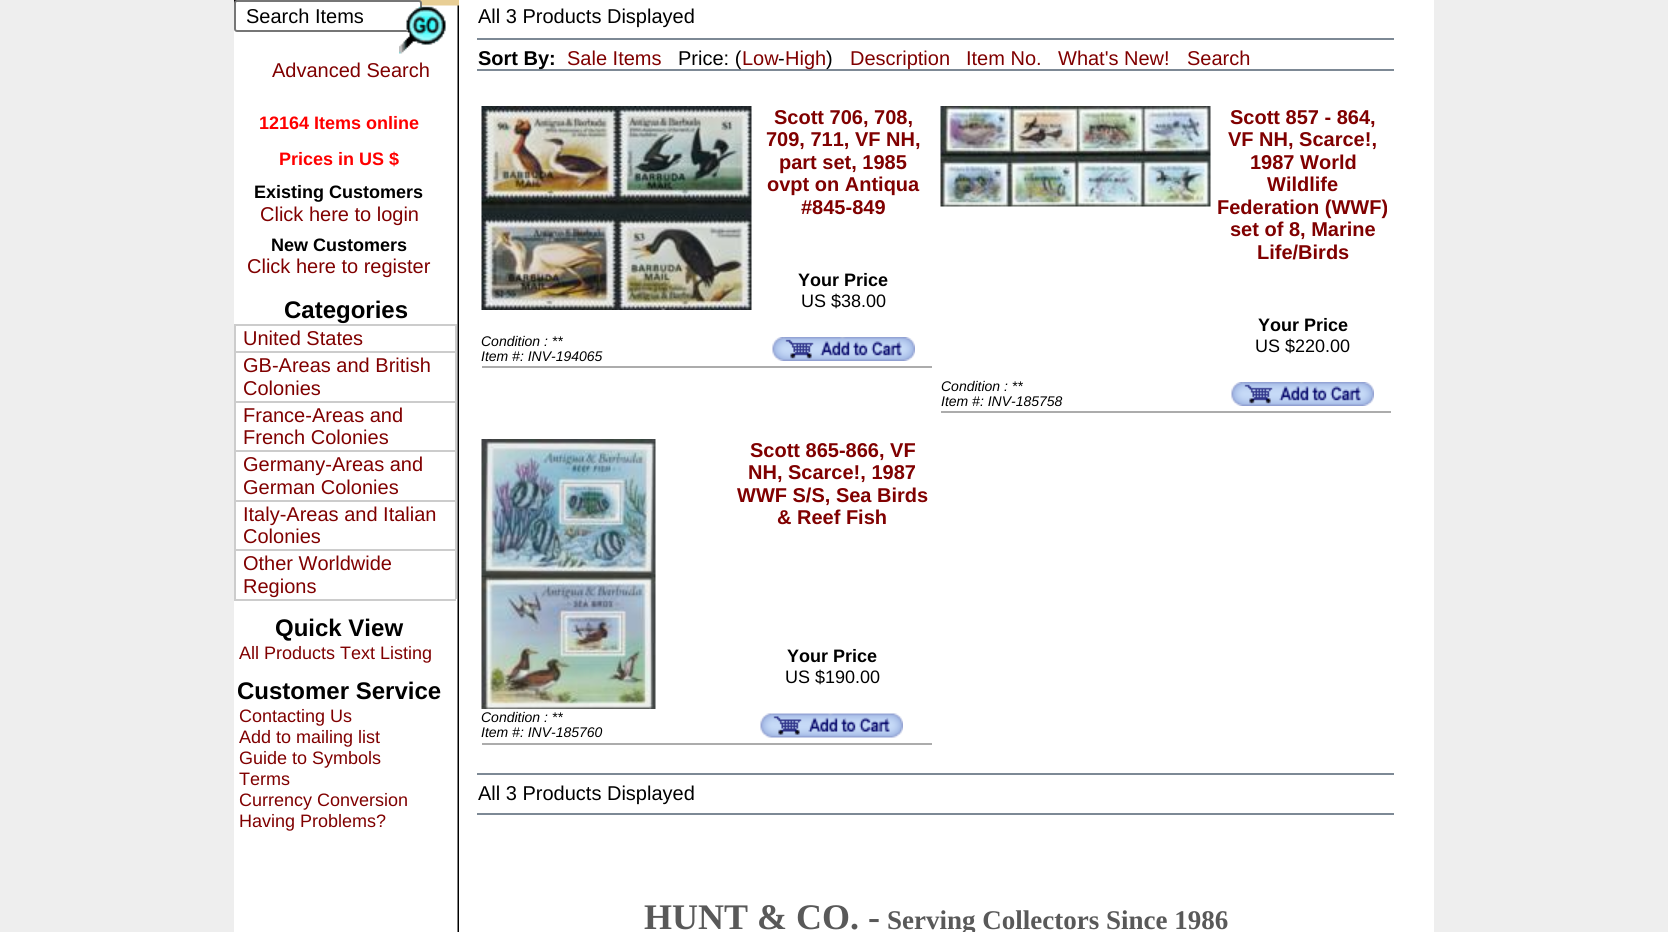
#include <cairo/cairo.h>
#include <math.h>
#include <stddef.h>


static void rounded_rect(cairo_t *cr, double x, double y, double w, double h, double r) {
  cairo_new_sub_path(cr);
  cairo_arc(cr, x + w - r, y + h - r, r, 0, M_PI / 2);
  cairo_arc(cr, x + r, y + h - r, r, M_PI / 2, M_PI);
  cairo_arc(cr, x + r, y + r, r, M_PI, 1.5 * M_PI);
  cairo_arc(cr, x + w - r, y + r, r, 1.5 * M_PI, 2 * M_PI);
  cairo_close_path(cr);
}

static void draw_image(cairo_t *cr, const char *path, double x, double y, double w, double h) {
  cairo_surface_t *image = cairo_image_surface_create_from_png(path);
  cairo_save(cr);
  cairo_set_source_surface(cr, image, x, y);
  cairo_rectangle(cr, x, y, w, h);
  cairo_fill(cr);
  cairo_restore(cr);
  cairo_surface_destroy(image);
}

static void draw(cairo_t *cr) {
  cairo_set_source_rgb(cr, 238 / 255.0, 238 / 255.0, 238 / 255.0);
  cairo_paint(cr);
  cairo_set_source_rgb(cr, 1, 1, 1);
  cairo_rectangle(cr, 234, 0, 1200, 932);
  cairo_fill(cr);
  draw_image(cr, "images/1.png", 457, 5, 2, 927);
  draw_image(cr, "images/2.png", 234, 0, 225, 6);
  rounded_rect(cr, 235, 1, 186, 30, 2);
  cairo_fill_preserve(cr);
  cairo_set_source_rgb(cr, 118 / 255.0, 118 / 255.0, 118 / 255.0);
  cairo_stroke(cr);
  draw_image(cr, "images/3.png", 399, 6, 47, 48);
  cairo_set_source_rgb(cr, 204 / 255.0, 204 / 255.0, 204 / 255.0);
  cairo_rectangle(cr, 234, 599, 222, 2);
  cairo_fill(cr);
  cairo_rectangle(cr, 234, 324, 222, 2);
  cairo_fill(cr);
  cairo_rectangle(cr, 455, 324, 2, 27);
  cairo_fill(cr);
  cairo_rectangle(cr, 234, 324, 2, 27);
  cairo_fill(cr);
  cairo_rectangle(cr, 234, 351, 222, 2);
  cairo_fill(cr);
  cairo_rectangle(cr, 455, 351, 2, 50);
  cairo_fill(cr);
  cairo_rectangle(cr, 234, 351, 2, 50);
  cairo_fill(cr);
  cairo_rectangle(cr, 234, 401, 222, 2);
  cairo_fill(cr);
  cairo_rectangle(cr, 455, 401, 2, 49);
  cairo_fill(cr);
  cairo_rectangle(cr, 234, 401, 2, 49);
  cairo_fill(cr);
  cairo_rectangle(cr, 234, 450, 222, 2);
  cairo_fill(cr);
  cairo_rectangle(cr, 455, 450, 2, 50);
  cairo_fill(cr);
  cairo_rectangle(cr, 234, 450, 2, 50);
  cairo_fill(cr);
  cairo_rectangle(cr, 234, 500, 222, 2);
  cairo_fill(cr);
  cairo_rectangle(cr, 455, 500, 2, 49);
  cairo_fill(cr);
  cairo_rectangle(cr, 234, 500, 2, 49);
  cairo_fill(cr);
  cairo_rectangle(cr, 234, 549, 222, 2);
  cairo_fill(cr);
  cairo_rectangle(cr, 455, 549, 2, 50);
  cairo_fill(cr);
  cairo_rectangle(cr, 234, 549, 2, 50);
  cairo_fill(cr);
  cairo_set_source_rgb(cr, 125 / 255.0, 137 / 255.0, 149 / 255.0);
  cairo_rectangle(cr, 477, 38, 917, 2);
  cairo_fill(cr);
  cairo_rectangle(cr, 477, 69, 917, 2);
  cairo_fill(cr);
  cairo_set_source_rgb(cr, 172 / 255.0, 172 / 255.0, 172 / 255.0);
  cairo_rectangle(cr, 482, 366, 450, 2);
  cairo_fill(cr);
  draw_image(cr, "images/4.png", 481, 106, 271, 204);
  draw_image(cr, "images/5.png", 772, 337, 143, 24);
  cairo_rectangle(cr, 941, 411, 450, 2);
  cairo_fill(cr);
  draw_image(cr, "images/6.png", 940, 106, 271, 101);
  draw_image(cr, "images/5.png", 1231, 382, 143, 24);
  cairo_rectangle(cr, 482, 743, 450, 2);
  cairo_fill(cr);
  draw_image(cr, "images/7.png", 481, 439, 175, 270);
  draw_image(cr, "images/8.png", 760, 713, 143, 25);
  cairo_set_source_rgb(cr, 125 / 255.0, 137 / 255.0, 149 / 255.0);
  cairo_rectangle(cr, 477, 773, 917, 2);
  cairo_fill(cr);
  cairo_rectangle(cr, 477, 813, 917, 2);
  cairo_fill(cr);
  cairo_select_font_face(cr, "Liberation Sans", CAIRO_FONT_SLANT_NORMAL, CAIRO_FONT_WEIGHT_NORMAL);
  cairo_set_font_size(cr, 20);
  cairo_set_source_rgb(cr, 0, 0, 0);
  cairo_move_to(cr, 246, 23);
  cairo_show_text(cr, "Search Items");
  cairo_set_source_rgb(cr, 128 / 255.0, 0, 0);
  cairo_move_to(cr, 272, 77);
  cairo_show_text(cr, "Advanced Search");
  cairo_select_font_face(cr, "Liberation Sans", CAIRO_FONT_SLANT_NORMAL, CAIRO_FONT_WEIGHT_BOLD);
  cairo_set_font_size(cr, 18);
  cairo_set_source_rgb(cr, 1, 0, 0);
  cairo_move_to(cr, 259, 129);
  cairo_show_text(cr, "12164 Items online");
  cairo_move_to(cr, 279, 165);
  cairo_show_text(cr, "Prices in US $");
  cairo_set_source_rgb(cr, 0, 0, 0);
  cairo_move_to(cr, 254, 198);
  cairo_show_text(cr, "Existing Customers");
  cairo_select_font_face(cr, "Liberation Sans", CAIRO_FONT_SLANT_NORMAL, CAIRO_FONT_WEIGHT_NORMAL);
  cairo_set_font_size(cr, 20);
  cairo_set_source_rgb(cr, 128 / 255.0, 0, 0);
  cairo_move_to(cr, 260, 221);
  cairo_show_text(cr, "Click here to login");
  cairo_select_font_face(cr, "Liberation Sans", CAIRO_FONT_SLANT_NORMAL, CAIRO_FONT_WEIGHT_BOLD);
  cairo_set_font_size(cr, 18);
  cairo_set_source_rgb(cr, 0, 0, 0);
  cairo_move_to(cr, 271, 251);
  cairo_show_text(cr, "New Customers");
  cairo_select_font_face(cr, "Liberation Sans", CAIRO_FONT_SLANT_NORMAL, CAIRO_FONT_WEIGHT_NORMAL);
  cairo_set_font_size(cr, 20);
  cairo_set_source_rgb(cr, 128 / 255.0, 0, 0);
  cairo_move_to(cr, 247, 273);
  cairo_show_text(cr, "Click here to register");
  cairo_select_font_face(cr, "Liberation Sans", CAIRO_FONT_SLANT_NORMAL, CAIRO_FONT_WEIGHT_BOLD);
  cairo_set_font_size(cr, 24);
  cairo_set_source_rgb(cr, 0, 0, 0);
  cairo_move_to(cr, 284, 318);
  cairo_show_text(cr, "Categories");
  cairo_select_font_face(cr, "Liberation Sans", CAIRO_FONT_SLANT_NORMAL, CAIRO_FONT_WEIGHT_NORMAL);
  cairo_set_font_size(cr, 20);
  cairo_set_source_rgb(cr, 128 / 255.0, 0, 0);
  cairo_move_to(cr, 243, 345);
  cairo_show_text(cr, "United States");
  cairo_move_to(cr, 243, 372);
  cairo_show_text(cr, "GB-Areas and British");
  cairo_move_to(cr, 243, 395);
  cairo_show_text(cr, "Colonies");
  cairo_move_to(cr, 243, 422);
  cairo_show_text(cr, "France-Areas and");
  cairo_move_to(cr, 243, 444);
  cairo_show_text(cr, "French Colonies");
  cairo_move_to(cr, 243, 471);
  cairo_show_text(cr, "Germany-Areas and");
  cairo_move_to(cr, 243, 494);
  cairo_show_text(cr, "German Colonies");
  cairo_move_to(cr, 243, 521);
  cairo_show_text(cr, "Italy-Areas and Italian");
  cairo_move_to(cr, 243, 543);
  cairo_show_text(cr, "Colonies");
  cairo_move_to(cr, 243, 570);
  cairo_show_text(cr, "Other Worldwide");
  cairo_move_to(cr, 243, 593);
  cairo_show_text(cr, "Regions");
  cairo_select_font_face(cr, "Liberation Sans", CAIRO_FONT_SLANT_NORMAL, CAIRO_FONT_WEIGHT_BOLD);
  cairo_set_font_size(cr, 24);
  cairo_set_source_rgb(cr, 0, 0, 0);
  cairo_move_to(cr, 275, 636);
  cairo_show_text(cr, "Quick View");
  cairo_select_font_face(cr, "Liberation Sans", CAIRO_FONT_SLANT_NORMAL, CAIRO_FONT_WEIGHT_NORMAL);
  cairo_set_font_size(cr, 18);
  cairo_set_source_rgb(cr, 128 / 255.0, 0, 0);
  cairo_move_to(cr, 239, 659);
  cairo_show_text(cr, "All Products Text Listing");
  cairo_select_font_face(cr, "Liberation Sans", CAIRO_FONT_SLANT_NORMAL, CAIRO_FONT_WEIGHT_BOLD);
  cairo_set_font_size(cr, 24);
  cairo_set_source_rgb(cr, 0, 0, 0);
  cairo_move_to(cr, 237, 699);
  cairo_show_text(cr, "Customer Service");
  cairo_select_font_face(cr, "Liberation Sans", CAIRO_FONT_SLANT_NORMAL, CAIRO_FONT_WEIGHT_NORMAL);
  cairo_set_font_size(cr, 18);
  cairo_set_source_rgb(cr, 128 / 255.0, 0, 0);
  cairo_move_to(cr, 239, 722);
  cairo_show_text(cr, "Contacting Us");
  cairo_move_to(cr, 239, 743);
  cairo_show_text(cr, "Add to mailing list");
  cairo_move_to(cr, 239, 764);
  cairo_show_text(cr, "Guide to Symbols");
  cairo_move_to(cr, 239, 785);
  cairo_show_text(cr, "Terms");
  cairo_move_to(cr, 239, 806);
  cairo_show_text(cr, "Currency Conversion");
  cairo_move_to(cr, 239, 827);
  cairo_show_text(cr, "Having Problems?");
  cairo_set_font_size(cr, 20);
  cairo_set_source_rgb(cr, 0, 0, 0);
  cairo_move_to(cr, 478, 23);
  cairo_show_text(cr, "All 3 Products Displayed");
  cairo_select_font_face(cr, "Liberation Sans", CAIRO_FONT_SLANT_NORMAL, CAIRO_FONT_WEIGHT_BOLD);
  cairo_move_to(cr, 478, 65);
  cairo_show_text(cr, "Sort By:");
  cairo_select_font_face(cr, "Liberation Sans", CAIRO_FONT_SLANT_NORMAL, CAIRO_FONT_WEIGHT_NORMAL);
  cairo_set_source_rgb(cr, 128 / 255.0, 0, 0);
  cairo_move_to(cr, 567, 65);
  cairo_show_text(cr, "Sale Items");
  cairo_set_source_rgb(cr, 0, 0, 0);
  cairo_move_to(cr, 678, 65);
  cairo_show_text(cr, "Price: (");
  cairo_set_source_rgb(cr, 128 / 255.0, 0, 0);
  cairo_move_to(cr, 742, 65);
  cairo_show_text(cr, "Low");
  cairo_set_source_rgb(cr, 0, 0, 0);
  cairo_move_to(cr, 778, 65);
  cairo_show_text(cr, "-");
  cairo_set_source_rgb(cr, 128 / 255.0, 0, 0);
  cairo_move_to(cr, 785, 65);
  cairo_show_text(cr, "High");
  cairo_set_source_rgb(cr, 0, 0, 0);
  cairo_move_to(cr, 826, 65);
  cairo_show_text(cr, ")");
  cairo_set_source_rgb(cr, 128 / 255.0, 0, 0);
  cairo_move_to(cr, 850, 65);
  cairo_show_text(cr, "Description");
  cairo_move_to(cr, 966, 65);
  cairo_show_text(cr, "Item No.");
  cairo_move_to(cr, 1058, 65);
  cairo_show_text(cr, "What's New!");
  cairo_move_to(cr, 1187, 65);
  cairo_show_text(cr, "Search");
  cairo_select_font_face(cr, "Liberation Sans", CAIRO_FONT_SLANT_NORMAL, CAIRO_FONT_WEIGHT_BOLD);
  cairo_move_to(cr, 774, 124);
  cairo_show_text(cr, "Scott 706, 708,");
  cairo_move_to(cr, 766, 146);
  cairo_show_text(cr, "709, 711, VF NH,");
  cairo_move_to(cr, 779, 169);
  cairo_show_text(cr, "part set, 1985");
  cairo_move_to(cr, 767, 191);
  cairo_show_text(cr, "ovpt on Antiqua");
  cairo_move_to(cr, 801, 214);
  cairo_show_text(cr, "#845-849");
  cairo_set_font_size(cr, 18);
  cairo_set_source_rgb(cr, 0, 0, 0);
  cairo_move_to(cr, 798, 286);
  cairo_show_text(cr, "Your Price");
  cairo_select_font_face(cr, "Liberation Sans", CAIRO_FONT_SLANT_NORMAL, CAIRO_FONT_WEIGHT_NORMAL);
  cairo_move_to(cr, 801, 307);
  cairo_show_text(cr, "US $38.00");
  cairo_select_font_face(cr, "Liberation Sans", CAIRO_FONT_SLANT_ITALIC, CAIRO_FONT_WEIGHT_NORMAL);
  cairo_set_font_size(cr, 14);
  cairo_move_to(cr, 481, 346);
  cairo_show_text(cr, "Condition : **");
  cairo_move_to(cr, 481, 361);
  cairo_show_text(cr, "Item #: INV-194065");
  cairo_select_font_face(cr, "Liberation Sans", CAIRO_FONT_SLANT_NORMAL, CAIRO_FONT_WEIGHT_BOLD);
  cairo_set_font_size(cr, 20);
  cairo_set_source_rgb(cr, 128 / 255.0, 0, 0);
  cairo_move_to(cr, 1230, 124);
  cairo_show_text(cr, "Scott 857 - 864,");
  cairo_move_to(cr, 1228, 146);
  cairo_show_text(cr, "VF NH, Scarce!,");
  cairo_move_to(cr, 1250, 169);
  cairo_show_text(cr, "1987 World");
  cairo_move_to(cr, 1267, 191);
  cairo_show_text(cr, "Wildlife");
  cairo_move_to(cr, 1217, 214);
  cairo_show_text(cr, "Federation (WWF)");
  cairo_move_to(cr, 1230, 236);
  cairo_show_text(cr, "set of 8, Marine");
  cairo_move_to(cr, 1257, 259);
  cairo_show_text(cr, "Life/Birds");
  cairo_set_font_size(cr, 18);
  cairo_set_source_rgb(cr, 0, 0, 0);
  cairo_move_to(cr, 1258, 331);
  cairo_show_text(cr, "Your Price");
  cairo_select_font_face(cr, "Liberation Sans", CAIRO_FONT_SLANT_NORMAL, CAIRO_FONT_WEIGHT_NORMAL);
  cairo_move_to(cr, 1255, 352);
  cairo_show_text(cr, "US $220.00");
  cairo_select_font_face(cr, "Liberation Sans", CAIRO_FONT_SLANT_ITALIC, CAIRO_FONT_WEIGHT_NORMAL);
  cairo_set_font_size(cr, 14);
  cairo_move_to(cr, 941, 391);
  cairo_show_text(cr, "Condition : **");
  cairo_move_to(cr, 941, 406);
  cairo_show_text(cr, "Item #: INV-185758");
  cairo_select_font_face(cr, "Liberation Sans", CAIRO_FONT_SLANT_NORMAL, CAIRO_FONT_WEIGHT_BOLD);
  cairo_set_font_size(cr, 20);
  cairo_set_source_rgb(cr, 128 / 255.0, 0, 0);
  cairo_move_to(cr, 750, 457);
  cairo_show_text(cr, "Scott 865-866, VF");
  cairo_move_to(cr, 748, 479);
  cairo_show_text(cr, "NH, Scarce!, 1987");
  cairo_move_to(cr, 737, 502);
  cairo_show_text(cr, "WWF S/S, Sea Birds");
  cairo_move_to(cr, 777, 524);
  cairo_show_text(cr, "& Reef Fish");
  cairo_set_font_size(cr, 18);
  cairo_set_source_rgb(cr, 0, 0, 0);
  cairo_move_to(cr, 787, 662);
  cairo_show_text(cr, "Your Price");
  cairo_select_font_face(cr, "Liberation Sans", CAIRO_FONT_SLANT_NORMAL, CAIRO_FONT_WEIGHT_NORMAL);
  cairo_move_to(cr, 785, 683);
  cairo_show_text(cr, "US $190.00");
  cairo_select_font_face(cr, "Liberation Sans", CAIRO_FONT_SLANT_ITALIC, CAIRO_FONT_WEIGHT_NORMAL);
  cairo_set_font_size(cr, 14);
  cairo_move_to(cr, 481, 722);
  cairo_show_text(cr, "Condition : **");
  cairo_move_to(cr, 481, 737);
  cairo_show_text(cr, "Item #: INV-185760");
  cairo_select_font_face(cr, "Liberation Sans", CAIRO_FONT_SLANT_NORMAL, CAIRO_FONT_WEIGHT_NORMAL);
  cairo_set_font_size(cr, 20);
  cairo_move_to(cr, 478, 800);
  cairo_show_text(cr, "All 3 Products Displayed");
  cairo_select_font_face(cr, "Liberation Serif", CAIRO_FONT_SLANT_NORMAL, CAIRO_FONT_WEIGHT_BOLD);
  cairo_set_font_size(cr, 36);
  cairo_set_source_rgb(cr, 89 / 255.0, 89 / 255.0, 89 / 255.0);
  cairo_move_to(cr, 644, 929);
  cairo_show_text(cr, "HUNT & CO. -");
  cairo_set_font_size(cr, 27);
  cairo_move_to(cr, 887, 929);
  cairo_show_text(cr, "Serving Collectors Since 1986");
}

int main(void) {
  cairo_surface_t *surface = cairo_image_surface_create(CAIRO_FORMAT_RGB24, 1668, 932);
  cairo_t *cr = cairo_create(surface);
  cairo_font_options_t *options = cairo_font_options_create();
  cairo_font_options_set_hint_metrics(options, CAIRO_HINT_METRICS_OFF);
  cairo_font_options_set_hint_style(options, CAIRO_HINT_STYLE_NONE);
  cairo_set_font_options(cr, options);
  cairo_set_miter_limit(cr, 4);
  draw(cr);
  cairo_surface_write_to_png(surface, "out.png");
  cairo_font_options_destroy(options);
  cairo_destroy(cr);
  cairo_surface_destroy(surface);
  return 0;
}
